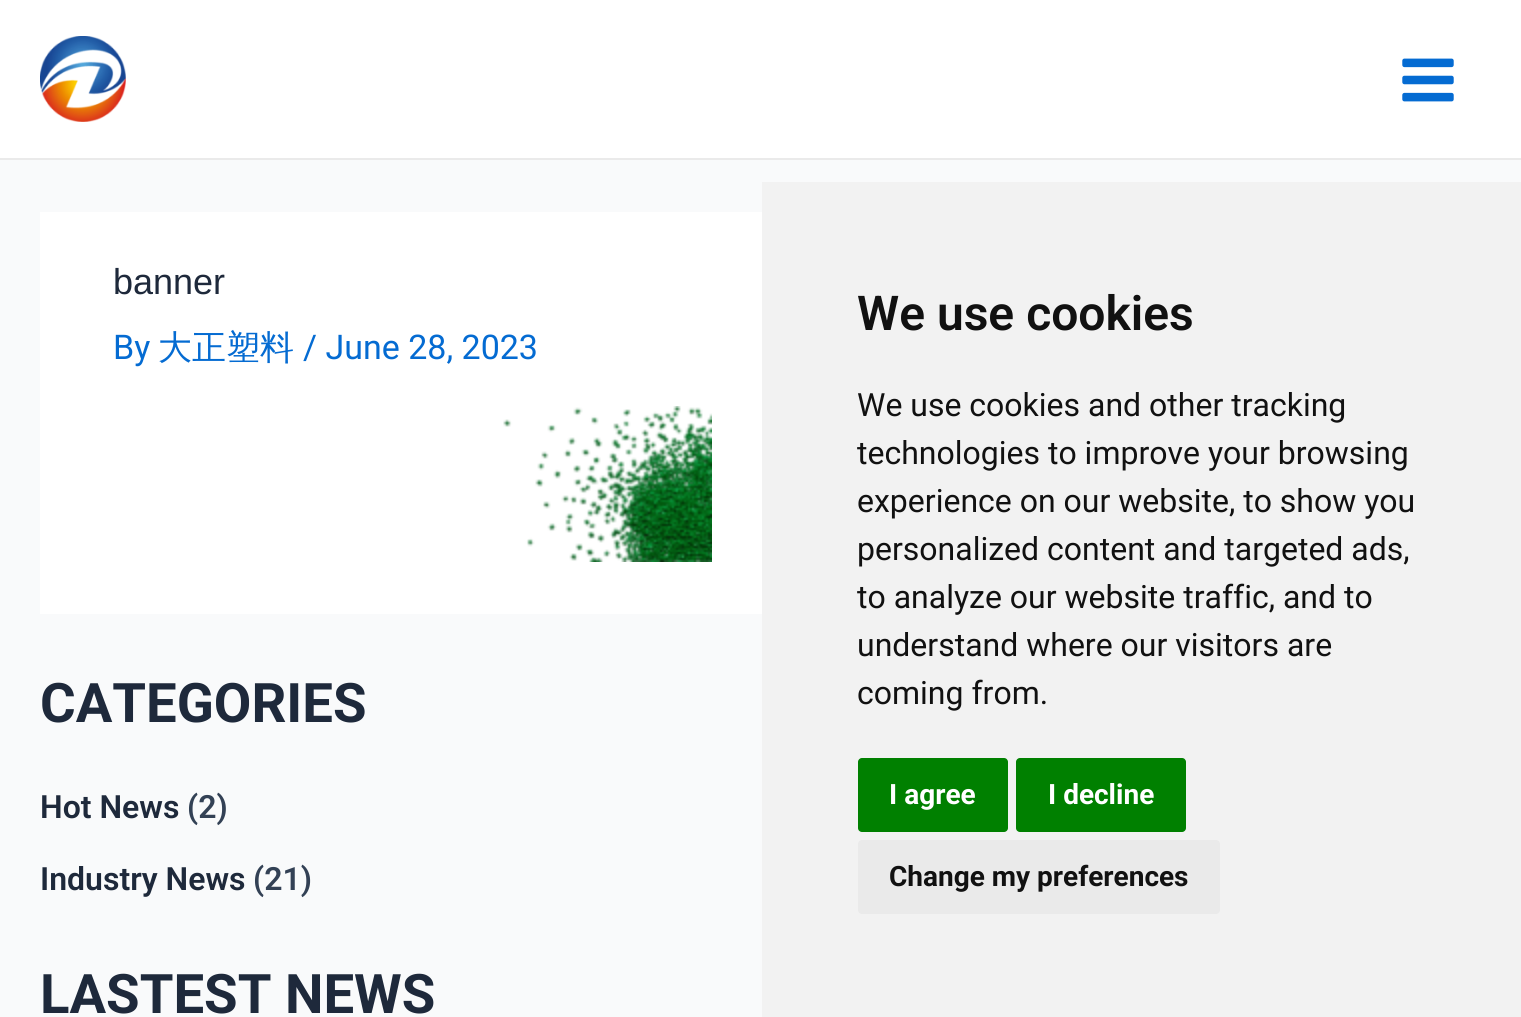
#include <cairo/cairo.h>
#include <math.h>
#include <stddef.h>


static void rounded_rect(cairo_t *cr, double x, double y, double w, double h, double r) {
  cairo_new_sub_path(cr);
  cairo_arc(cr, x + w - r, y + h - r, r, 0, M_PI / 2);
  cairo_arc(cr, x + r, y + h - r, r, M_PI / 2, M_PI);
  cairo_arc(cr, x + r, y + r, r, M_PI, 1.5 * M_PI);
  cairo_arc(cr, x + w - r, y + r, r, 1.5 * M_PI, 2 * M_PI);
  cairo_close_path(cr);
}

static void draw_image(cairo_t *cr, const char *path, double x, double y, double w, double h) {
  cairo_surface_t *image = cairo_image_surface_create_from_png(path);
  cairo_save(cr);
  cairo_set_source_surface(cr, image, x, y);
  cairo_rectangle(cr, x, y, w, h);
  cairo_fill(cr);
  cairo_restore(cr);
  cairo_surface_destroy(image);
}

static void draw(cairo_t *cr) {
  cairo_set_source_rgb(cr, 249 / 255.0, 250 / 255.0, 251 / 255.0);
  cairo_paint(cr);
  cairo_set_source_rgb(cr, 1, 1, 1);
  cairo_rectangle(cr, 0, 0, 1521, 158);
  cairo_fill(cr);
  cairo_set_source_rgb(cr, 234 / 255.0, 234 / 255.0, 234 / 255.0);
  cairo_rectangle(cr, 0, 158, 1521, 2);
  cairo_fill(cr);
  draw_image(cr, "images/1.png", 40, 36, 86, 86);
  draw_image(cr, "images/2.png", 1402, 58, 52, 44);
  cairo_set_source_rgb(cr, 1, 1, 1);
  cairo_rectangle(cr, 40, 212, 722, 402);
  cairo_fill(cr);
  draw_image(cr, "images/3.png", 503, 406, 209, 156);
  cairo_set_source_rgb(cr, 242 / 255.0, 242 / 255.0, 242 / 255.0);
  cairo_rectangle(cr, 762, 182, 759, 835);
  cairo_fill(cr);
  cairo_set_source_rgb(cr, 0, 128 / 255.0, 0);
  rounded_rect(cr, 858, 758, 150, 74, 4);
  cairo_fill(cr);
  rounded_rect(cr, 1016, 758, 170, 74, 4);
  cairo_fill(cr);
  cairo_set_source_rgb(cr, 234 / 255.0, 234 / 255.0, 234 / 255.0);
  rounded_rect(cr, 858, 840, 362, 74, 4);
  cairo_fill(cr);
  cairo_select_font_face(cr, "Liberation Sans", CAIRO_FONT_SLANT_NORMAL, CAIRO_FONT_WEIGHT_NORMAL);
  cairo_set_font_size(cr, 36);
  cairo_set_source_rgb(cr, 30 / 255.0, 41 / 255.0, 59 / 255.0);
  cairo_move_to(cr, 113, 294);
  cairo_show_text(cr, "banner");
  cairo_select_font_face(cr, "Roboto", CAIRO_FONT_SLANT_NORMAL, CAIRO_FONT_WEIGHT_NORMAL);
  cairo_set_font_size(cr, 34);
  cairo_set_source_rgb(cr, 4 / 255.0, 107 / 255.0, 210 / 255.0);
  cairo_move_to(cr, 113, 359);
  cairo_show_text(cr, "By");
  cairo_select_font_face(cr, "WenQuanYi Zen Hei Medium", CAIRO_FONT_SLANT_NORMAL, CAIRO_FONT_WEIGHT_NORMAL);
  cairo_move_to(cr, 158, 359);
  cairo_show_text(cr, "大正塑料");
  cairo_select_font_face(cr, "Roboto", CAIRO_FONT_SLANT_NORMAL, CAIRO_FONT_WEIGHT_NORMAL);
  cairo_move_to(cr, 303, 359);
  cairo_show_text(cr, "/ June 28, 2023");
  cairo_select_font_face(cr, "Roboto", CAIRO_FONT_SLANT_NORMAL, CAIRO_FONT_WEIGHT_BOLD);
  cairo_set_font_size(cr, 54.5);
  cairo_set_source_rgb(cr, 30 / 255.0, 41 / 255.0, 59 / 255.0);
  cairo_move_to(cr, 40, 722);
  cairo_show_text(cr, "CATEGORIES");
  cairo_select_font_face(cr, "Roboto SemiBold", CAIRO_FONT_SLANT_NORMAL, CAIRO_FONT_WEIGHT_NORMAL);
  cairo_set_font_size(cr, 32);
  cairo_move_to(cr, 40, 818);
  cairo_show_text(cr, "Hot News");
  cairo_set_source_rgb(cr, 51 / 255.0, 65 / 255.0, 85 / 255.0);
  cairo_move_to(cr, 187, 818);
  cairo_show_text(cr, "(2)");
  cairo_set_source_rgb(cr, 30 / 255.0, 41 / 255.0, 59 / 255.0);
  cairo_move_to(cr, 40, 890);
  cairo_show_text(cr, "Industry News");
  cairo_set_source_rgb(cr, 51 / 255.0, 65 / 255.0, 85 / 255.0);
  cairo_move_to(cr, 253, 890);
  cairo_show_text(cr, "(21)");
  cairo_select_font_face(cr, "Roboto", CAIRO_FONT_SLANT_NORMAL, CAIRO_FONT_WEIGHT_BOLD);
  cairo_set_font_size(cr, 54.5);
  cairo_set_source_rgb(cr, 30 / 255.0, 41 / 255.0, 59 / 255.0);
  cairo_move_to(cr, 40, 1013);
  cairo_show_text(cr, "LASTEST NEWS");
  cairo_select_font_face(cr, "Roboto SemiBold", CAIRO_FONT_SLANT_NORMAL, CAIRO_FONT_WEIGHT_NORMAL);
  cairo_set_font_size(cr, 48);
  cairo_set_source_rgb(cr, 17 / 255.0, 17 / 255.0, 17 / 255.0);
  cairo_move_to(cr, 857, 330);
  cairo_show_text(cr, "We use cookies");
  cairo_select_font_face(cr, "Roboto", CAIRO_FONT_SLANT_NORMAL, CAIRO_FONT_WEIGHT_NORMAL);
  cairo_set_font_size(cr, 32);
  cairo_move_to(cr, 857, 416);
  cairo_show_text(cr, "We use cookies and other tracking");
  cairo_move_to(cr, 857, 464);
  cairo_show_text(cr, "technologies to improve your browsing");
  cairo_move_to(cr, 857, 512);
  cairo_show_text(cr, "experience on our website, to show you");
  cairo_move_to(cr, 857, 560);
  cairo_show_text(cr, "personalized content and targeted ads,");
  cairo_move_to(cr, 857, 608);
  cairo_show_text(cr, "to analyze our website traffic, and to");
  cairo_move_to(cr, 857, 656);
  cairo_show_text(cr, "understand where our visitors are");
  cairo_move_to(cr, 857, 704);
  cairo_show_text(cr, "coming from.");
  cairo_select_font_face(cr, "Roboto", CAIRO_FONT_SLANT_NORMAL, CAIRO_FONT_WEIGHT_BOLD);
  cairo_set_font_size(cr, 28);
  cairo_set_source_rgb(cr, 1, 1, 1);
  cairo_move_to(cr, 889, 804);
  cairo_show_text(cr, "I agree");
  cairo_move_to(cr, 1048, 804);
  cairo_show_text(cr, "I decline");
  cairo_set_source_rgb(cr, 17 / 255.0, 17 / 255.0, 17 / 255.0);
  cairo_move_to(cr, 889, 886);
  cairo_show_text(cr, "Change my preferences");
}

int main(void) {
  cairo_surface_t *surface = cairo_image_surface_create(CAIRO_FORMAT_RGB24, 1521, 1017);
  cairo_t *cr = cairo_create(surface);
  cairo_font_options_t *options = cairo_font_options_create();
  cairo_font_options_set_hint_metrics(options, CAIRO_HINT_METRICS_OFF);
  cairo_font_options_set_hint_style(options, CAIRO_HINT_STYLE_NONE);
  cairo_set_font_options(cr, options);
  cairo_set_miter_limit(cr, 4);
  draw(cr);
  cairo_surface_write_to_png(surface, "out.png");
  cairo_font_options_destroy(options);
  cairo_destroy(cr);
  cairo_surface_destroy(surface);
  return 0;
}
